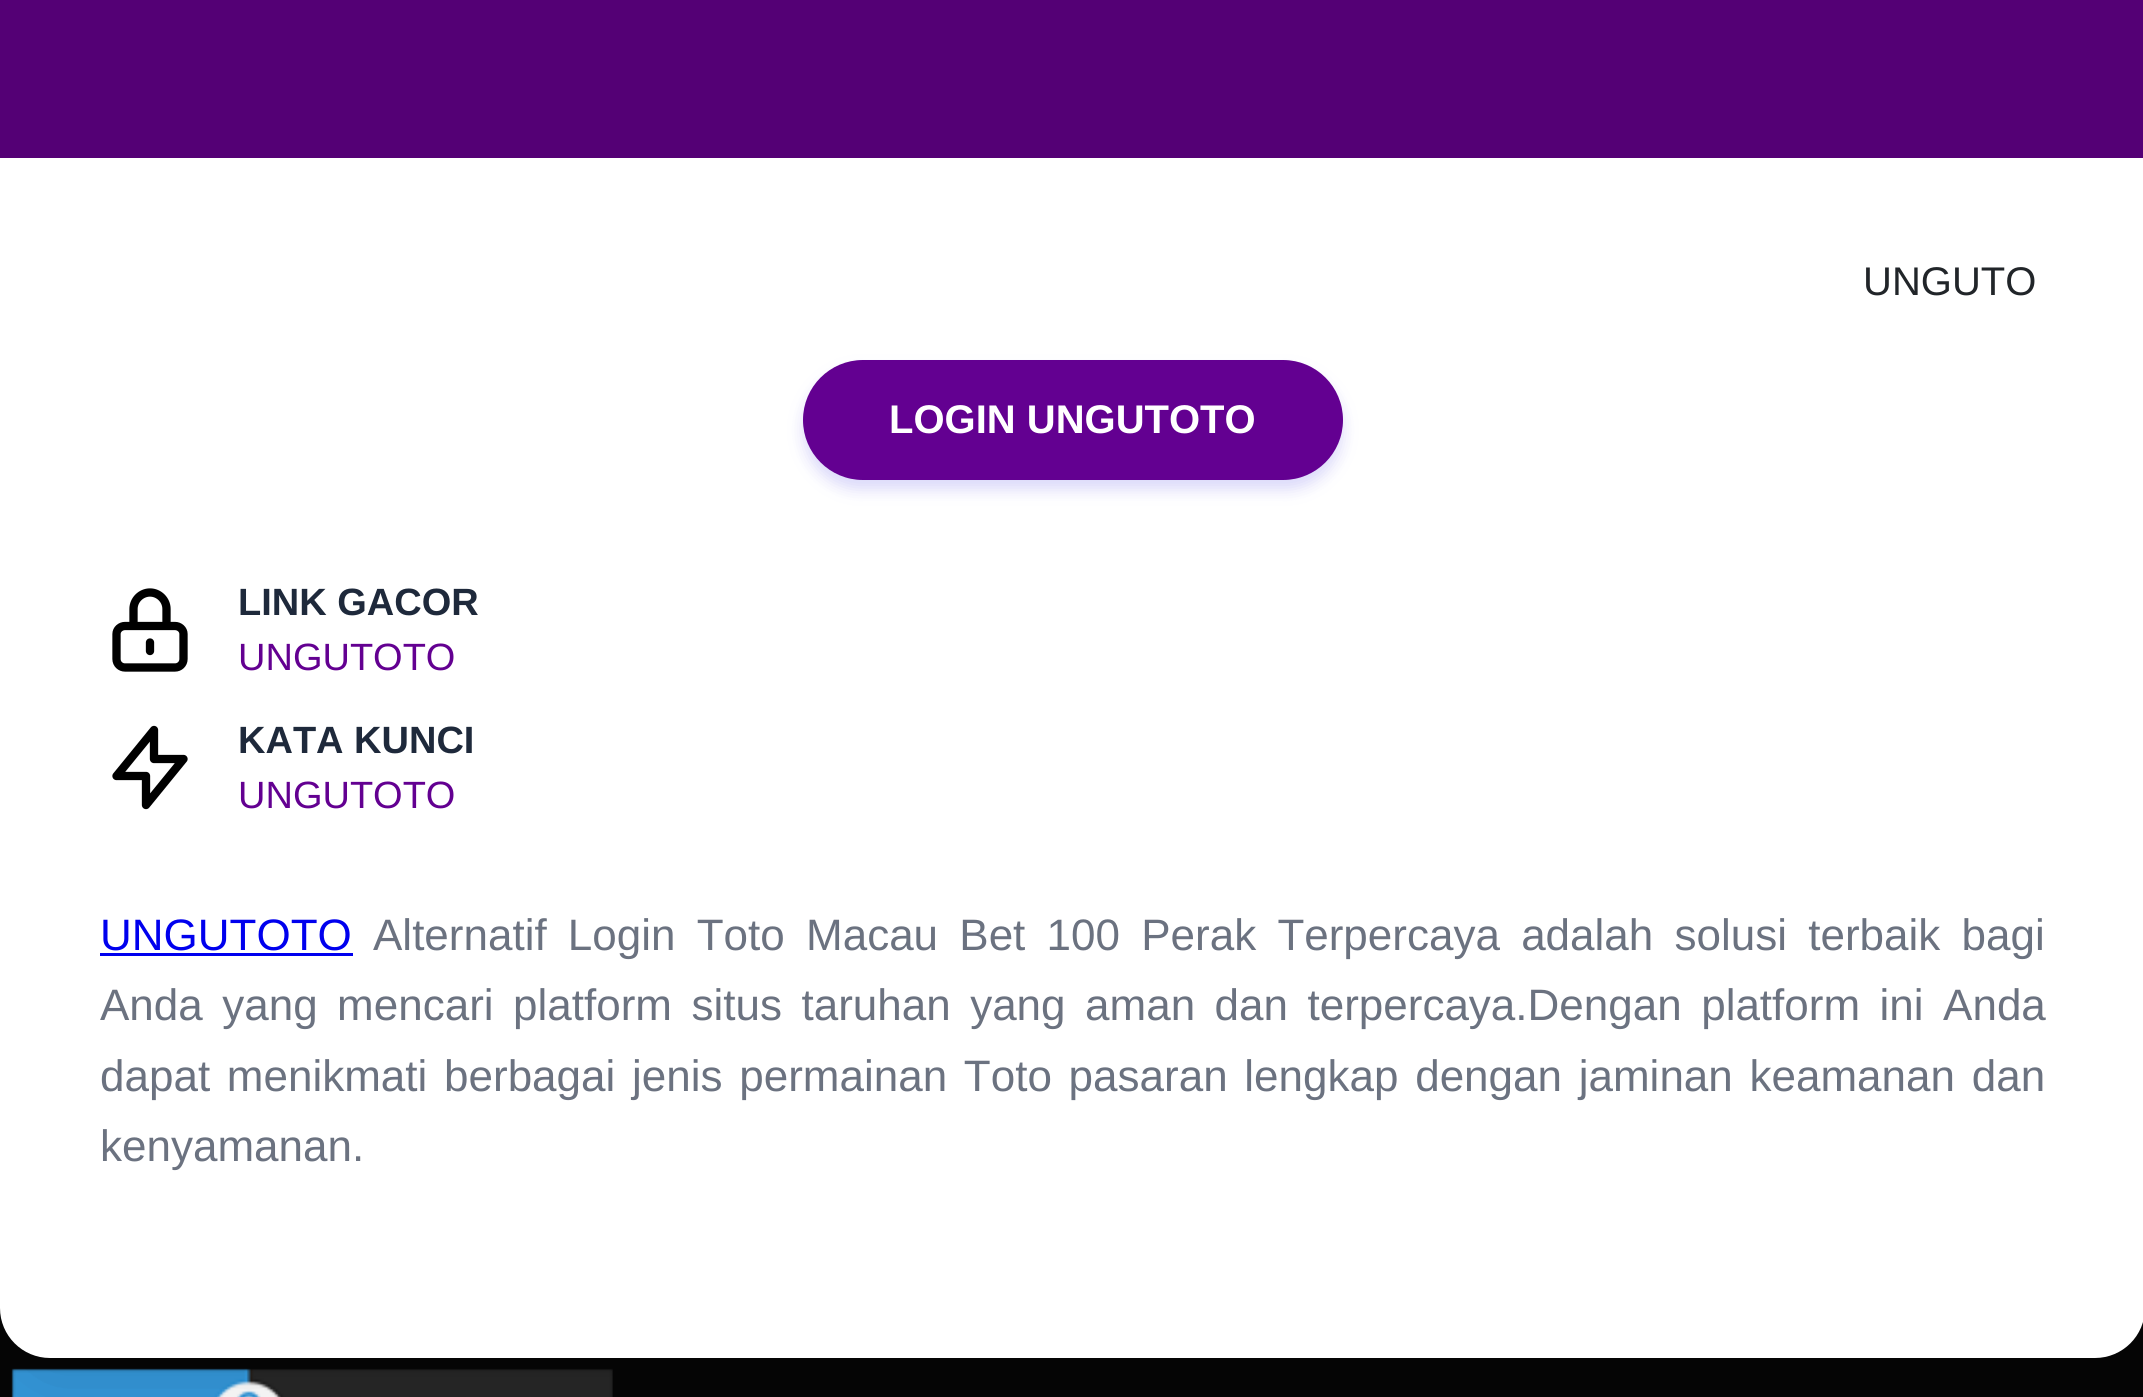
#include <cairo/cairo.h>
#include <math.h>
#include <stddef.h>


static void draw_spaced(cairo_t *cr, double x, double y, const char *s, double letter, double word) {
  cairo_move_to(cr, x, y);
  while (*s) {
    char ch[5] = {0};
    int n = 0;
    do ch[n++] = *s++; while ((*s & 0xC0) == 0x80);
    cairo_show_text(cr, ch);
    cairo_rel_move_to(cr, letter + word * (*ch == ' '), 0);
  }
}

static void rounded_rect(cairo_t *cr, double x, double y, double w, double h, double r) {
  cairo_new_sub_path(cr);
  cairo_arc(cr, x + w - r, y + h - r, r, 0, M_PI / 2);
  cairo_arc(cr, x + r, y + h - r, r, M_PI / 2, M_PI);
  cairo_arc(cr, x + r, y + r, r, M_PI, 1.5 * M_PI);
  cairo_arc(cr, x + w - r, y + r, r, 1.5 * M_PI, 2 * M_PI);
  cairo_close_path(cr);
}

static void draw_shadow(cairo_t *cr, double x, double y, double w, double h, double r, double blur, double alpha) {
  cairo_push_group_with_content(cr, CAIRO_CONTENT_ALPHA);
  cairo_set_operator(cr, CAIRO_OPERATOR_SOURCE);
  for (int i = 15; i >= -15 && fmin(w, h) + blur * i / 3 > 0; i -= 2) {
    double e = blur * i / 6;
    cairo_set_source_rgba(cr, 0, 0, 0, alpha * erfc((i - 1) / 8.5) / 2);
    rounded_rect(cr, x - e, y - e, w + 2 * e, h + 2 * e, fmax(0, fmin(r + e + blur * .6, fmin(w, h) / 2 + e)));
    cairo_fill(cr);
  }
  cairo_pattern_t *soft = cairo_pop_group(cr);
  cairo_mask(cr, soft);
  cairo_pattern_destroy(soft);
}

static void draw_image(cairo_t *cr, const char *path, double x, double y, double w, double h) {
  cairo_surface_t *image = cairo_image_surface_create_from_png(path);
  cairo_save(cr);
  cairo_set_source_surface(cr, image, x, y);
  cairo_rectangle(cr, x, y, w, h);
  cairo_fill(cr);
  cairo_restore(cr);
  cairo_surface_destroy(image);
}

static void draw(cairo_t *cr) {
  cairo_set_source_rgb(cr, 5 / 255.0, 5 / 255.0, 5 / 255.0);
  cairo_paint(cr);
  draw_image(cr, "images/1.png", 11, 1368, 602, 29);
  cairo_set_source_rgb(cr, 0, 0, 0);
  draw_shadow(cr, 0, -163, 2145, 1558, 50, 37.5, 0.1);
  cairo_set_source_rgb(cr, 1, 1, 1);
  rounded_rect(cr, 0, -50, 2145, 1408, 50);
  cairo_fill(cr);
  cairo_set_source_rgb(cr, 84 / 255.0, 0, 117 / 255.0);
  cairo_rectangle(cr, 0, 0, 2143, 158);
  cairo_fill(cr);
  cairo_set_source_rgb(cr, 79 / 255.0, 70 / 255.0, 229 / 255.0);
  draw_shadow(cr, 803, 370, 540, 120, 60, 7.5, 0.2);
  cairo_set_source_rgb(cr, 99 / 255.0, 0, 145 / 255.0);
  rounded_rect(cr, 803, 360, 540, 120, 60);
  cairo_fill(cr);
  cairo_new_path(cr);
  cairo_move_to(cr, 150, 642.5);
  cairo_line_to(cr, 150, 651);
  cairo_move_to(cr, 125, 667.5);
  cairo_line_to(cr, 175, 667.5);
  cairo_curve_to(cr, 179.5, 667.5, 183.5, 664, 183.5, 659);
  cairo_line_to(cr, 183.5, 634);
  cairo_curve_to(cr, 183.5, 629.5, 179.5, 626, 175, 626);
  cairo_line_to(cr, 125, 626);
  cairo_curve_to(cr, 120.5, 626, 116.5, 629.5, 116.5, 634);
  cairo_line_to(cr, 116.5, 659);
  cairo_curve_to(cr, 116.5, 664, 120.5, 667.5, 125, 667.5);
  cairo_close_path(cr);
  cairo_move_to(cr, 166.5, 626);
  cairo_line_to(cr, 166.5, 609);
  cairo_curve_to(cr, 166.5, 600, 159, 592.5, 150, 592.5);
  cairo_curve_to(cr, 141, 592.5, 133.5, 600, 133.5, 609);
  cairo_line_to(cr, 133.5, 626);
  cairo_close_path(cr);
  cairo_set_source_rgb(cr, 0, 0, 0);
  cairo_set_line_width(cr, 8.3);
  cairo_set_line_cap(cr, CAIRO_LINE_CAP_ROUND);
  cairo_set_line_join(cr, CAIRO_LINE_JOIN_ROUND);
  cairo_stroke(cr);
  cairo_new_path(cr);
  cairo_move_to(cr, 154, 759);
  cairo_line_to(cr, 154, 730);
  cairo_line_to(cr, 116.5, 776);
  cairo_line_to(cr, 146, 776);
  cairo_line_to(cr, 146, 805);
  cairo_line_to(cr, 183.5, 759);
  cairo_close_path(cr);
  cairo_stroke(cr);
  cairo_set_source_rgb(cr, 0, 0, 238 / 255.0);
  cairo_rectangle(cr, 100, 953, 253, 3);
  cairo_fill(cr);
  cairo_select_font_face(cr, "Liberation Sans", CAIRO_FONT_SLANT_NORMAL, CAIRO_FONT_WEIGHT_NORMAL);
  cairo_set_font_size(cr, 40);
  cairo_set_source_rgb(cr, 33 / 255.0, 37 / 255.0, 41 / 255.0);
  cairo_move_to(cr, 1863, 295);
  cairo_show_text(cr, "UNGUTO");
  cairo_select_font_face(cr, "Liberation Sans", CAIRO_FONT_SLANT_NORMAL, CAIRO_FONT_WEIGHT_BOLD);
  cairo_set_source_rgb(cr, 1, 1, 1);
  cairo_move_to(cr, 889, 433);
  cairo_show_text(cr, "LOGIN UNGUTOTO");
  cairo_set_font_size(cr, 38);
  cairo_set_source_rgb(cr, 30 / 255.0, 41 / 255.0, 59 / 255.0);
  cairo_move_to(cr, 238, 615);
  cairo_show_text(cr, "LINK GACOR");
  cairo_select_font_face(cr, "Liberation Sans", CAIRO_FONT_SLANT_NORMAL, CAIRO_FONT_WEIGHT_NORMAL);
  cairo_set_source_rgb(cr, 99 / 255.0, 0, 145 / 255.0);
  cairo_move_to(cr, 238, 670);
  cairo_show_text(cr, "UNGUTOTO");
  cairo_select_font_face(cr, "Liberation Sans", CAIRO_FONT_SLANT_NORMAL, CAIRO_FONT_WEIGHT_BOLD);
  cairo_set_source_rgb(cr, 30 / 255.0, 41 / 255.0, 59 / 255.0);
  cairo_move_to(cr, 238, 753);
  cairo_show_text(cr, "KATA KUNCI");
  cairo_select_font_face(cr, "Liberation Sans", CAIRO_FONT_SLANT_NORMAL, CAIRO_FONT_WEIGHT_NORMAL);
  cairo_set_source_rgb(cr, 99 / 255.0, 0, 145 / 255.0);
  cairo_move_to(cr, 238, 808);
  cairo_show_text(cr, "UNGUTOTO");
  cairo_set_font_size(cr, 44);
  cairo_set_source_rgb(cr, 0, 0, 238 / 255.0);
  cairo_move_to(cr, 100, 950);
  cairo_show_text(cr, "UNGUTOTO");
  cairo_set_source_rgb(cr, 107 / 255.0, 114 / 255.0, 128 / 255.0);
  draw_spaced(cr, 373, 950, "Alternatif Login Toto Macau Bet 100 Perak Terpercaya adalah solusi terbaik bagi", 0, 9);
  draw_spaced(cr, 100, 1020, "Anda yang mencari platform situs taruhan yang aman dan terpercaya.Dengan platform ini Anda", 0, 7.25);
  draw_spaced(cr, 100, 1091, "dapat menikmati berbagai jenis permainan Toto pasaran lengkap dengan jaminan keamanan dan", 0, 4.5);
  cairo_move_to(cr, 100, 1161);
  cairo_show_text(cr, "kenyamanan.");
}

int main(void) {
  cairo_surface_t *surface = cairo_image_surface_create(CAIRO_FORMAT_RGB24, 2143, 1397);
  cairo_t *cr = cairo_create(surface);
  cairo_font_options_t *options = cairo_font_options_create();
  cairo_font_options_set_hint_metrics(options, CAIRO_HINT_METRICS_OFF);
  cairo_font_options_set_hint_style(options, CAIRO_HINT_STYLE_NONE);
  cairo_set_font_options(cr, options);
  cairo_set_miter_limit(cr, 4);
  draw(cr);
  cairo_surface_write_to_png(surface, "out.png");
  cairo_font_options_destroy(options);
  cairo_destroy(cr);
  cairo_surface_destroy(surface);
  return 0;
}
